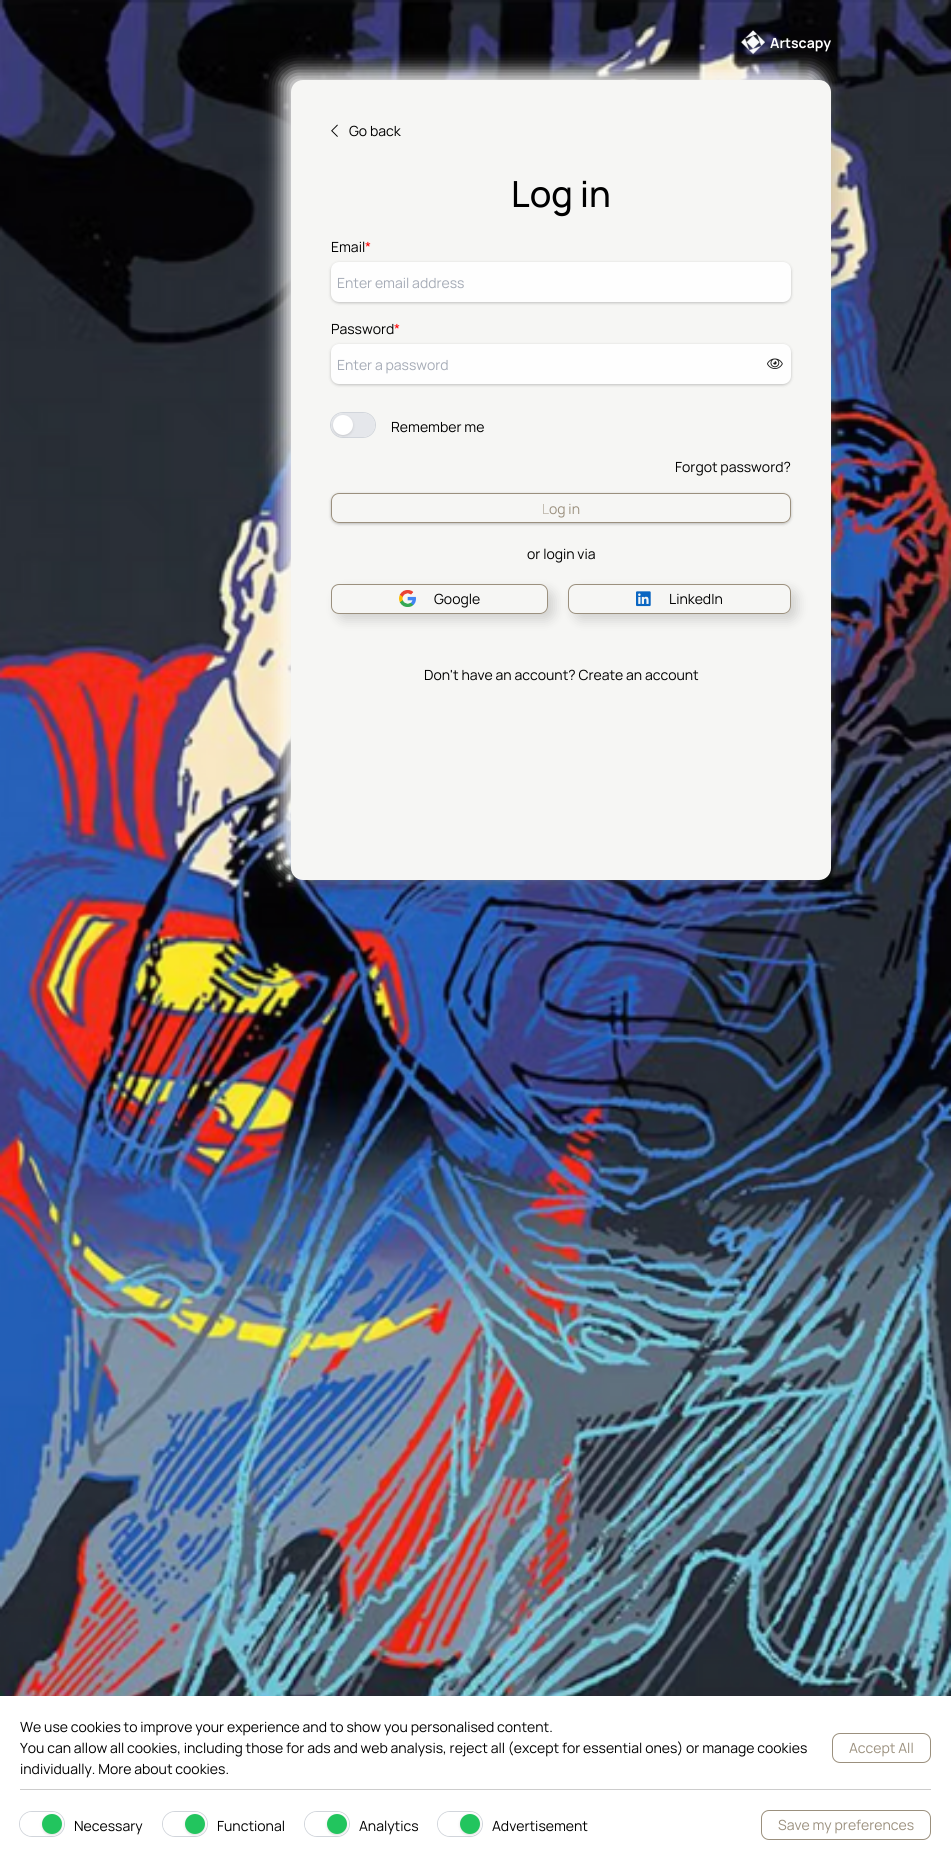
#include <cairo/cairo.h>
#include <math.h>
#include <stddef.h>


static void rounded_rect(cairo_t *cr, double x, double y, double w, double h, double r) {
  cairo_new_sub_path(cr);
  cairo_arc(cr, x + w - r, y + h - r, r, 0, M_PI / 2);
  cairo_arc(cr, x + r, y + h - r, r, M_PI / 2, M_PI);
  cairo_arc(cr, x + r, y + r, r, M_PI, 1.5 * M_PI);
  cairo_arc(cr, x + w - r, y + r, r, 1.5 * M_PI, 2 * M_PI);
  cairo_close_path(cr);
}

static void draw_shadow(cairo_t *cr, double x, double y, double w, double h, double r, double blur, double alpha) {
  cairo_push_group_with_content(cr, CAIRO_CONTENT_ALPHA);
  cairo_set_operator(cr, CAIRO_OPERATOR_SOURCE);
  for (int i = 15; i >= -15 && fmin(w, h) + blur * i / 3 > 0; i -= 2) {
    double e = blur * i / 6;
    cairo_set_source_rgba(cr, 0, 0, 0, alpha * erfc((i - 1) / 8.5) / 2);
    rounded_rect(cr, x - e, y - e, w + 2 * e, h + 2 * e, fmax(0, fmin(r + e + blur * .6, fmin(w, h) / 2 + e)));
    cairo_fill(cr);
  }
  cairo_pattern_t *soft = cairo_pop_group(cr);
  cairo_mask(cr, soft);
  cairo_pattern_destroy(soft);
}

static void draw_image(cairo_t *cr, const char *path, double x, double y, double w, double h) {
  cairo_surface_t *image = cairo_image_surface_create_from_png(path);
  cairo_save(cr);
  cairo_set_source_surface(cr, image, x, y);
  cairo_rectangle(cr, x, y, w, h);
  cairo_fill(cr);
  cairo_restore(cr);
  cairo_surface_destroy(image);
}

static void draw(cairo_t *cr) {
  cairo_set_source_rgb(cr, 1, 1, 1);
  cairo_paint(cr);
  draw_image(cr, "images/1.png", 0, 0, 951, 1696);
  draw_image(cr, "images/2.png", 740, 30, 25, 25);
  draw_shadow(cr, 282, 71, 540, 800, 12, 9, 0.9);
  cairo_set_source_rgb(cr, 0, 0, 0);
  draw_shadow(cr, 300, 89, 540, 800, 12, 9, 0.15);
  cairo_set_source_rgb(cr, 246 / 255.0, 246 / 255.0, 244 / 255.0);
  rounded_rect(cr, 291, 80, 540, 800, 12);
  cairo_fill(cr);
  draw_image(cr, "images/3.png", 331, 124, 7, 13);
  cairo_set_source_rgb(cr, 25 / 255.0, 25 / 255.0, 24 / 255.0);
  draw_shadow(cr, 331, 263, 460, 40, 8, 1.5, 0.25);
  cairo_set_source_rgb(cr, 254 / 255.0, 254 / 255.0, 254 / 255.0);
  rounded_rect(cr, 331, 262, 460, 40, 8);
  cairo_fill(cr);
  cairo_set_source_rgb(cr, 25 / 255.0, 25 / 255.0, 24 / 255.0);
  draw_shadow(cr, 331, 345, 460, 40, 8, 1.5, 0.25);
  cairo_set_source_rgb(cr, 254 / 255.0, 254 / 255.0, 254 / 255.0);
  rounded_rect(cr, 331, 344, 460, 40, 8);
  cairo_fill(cr);
  draw_image(cr, "images/4.png", 767, 358, 16, 11);
  rounded_rect(cr, 330.5, 412.5, 45, 25, 12.5);
  cairo_set_source_rgb(cr, 209 / 255.0, 213 / 255.0, 219 / 255.0);
  cairo_set_line_width(cr, 1);
  cairo_stroke(cr);
  cairo_set_source_rgb(cr, 229 / 255.0, 231 / 255.0, 235 / 255.0);
  rounded_rect(cr, 331, 413, 44, 24, 12);
  cairo_fill(cr);
  cairo_set_source_rgb(cr, 0, 0, 0);
  draw_shadow(cr, 334, 417, 18, 18, 9, 1, 0.1);
  draw_shadow(cr, 333, 416, 20, 20, 10, 1.5, 0.1);
  cairo_set_source_rgb(cr, 1, 1, 1);
  cairo_arc(cr, 343, 425, 10, 0, 2 * M_PI);
  cairo_fill(cr);
  cairo_save(cr);
  cairo_set_fill_rule(cr, CAIRO_FILL_RULE_EVEN_ODD);
  cairo_new_path(cr);
  cairo_move_to(cr, 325, 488);
  cairo_line_to(cr, 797, 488);
  cairo_line_to(cr, 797, 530);
  cairo_line_to(cr, 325, 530);
  cairo_close_path(cr);
  cairo_move_to(cr, 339, 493);
  cairo_line_to(cr, 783, 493);
  cairo_curve_to(cr, 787.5, 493, 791, 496.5, 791, 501);
  cairo_line_to(cr, 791, 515);
  cairo_curve_to(cr, 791, 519.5, 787.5, 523, 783, 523);
  cairo_line_to(cr, 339, 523);
  cairo_curve_to(cr, 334.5, 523, 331, 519.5, 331, 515);
  cairo_line_to(cr, 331, 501);
  cairo_curve_to(cr, 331, 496.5, 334.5, 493, 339, 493);
  cairo_close_path(cr);
  cairo_clip(cr);
  cairo_set_source_rgb(cr, 0, 0, 0);
  draw_shadow(cr, 331, 494, 460, 30, 8, 1.5, 0.25);
  cairo_restore(cr);
  rounded_rect(cr, 331.5, 493.5, 459, 29, 7.5);
  cairo_set_source_rgb(cr, 155 / 255.0, 144 / 255.0, 126 / 255.0);
  cairo_stroke(cr);
  cairo_save(cr);
  cairo_set_fill_rule(cr, CAIRO_FILL_RULE_EVEN_ODD);
  cairo_new_path(cr);
  cairo_move_to(cr, 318, 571);
  cairo_line_to(cr, 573, 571);
  cairo_line_to(cr, 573, 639);
  cairo_line_to(cr, 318, 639);
  cairo_close_path(cr);
  cairo_move_to(cr, 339, 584);
  cairo_line_to(cr, 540, 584);
  cairo_curve_to(cr, 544.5, 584, 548, 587.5, 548, 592);
  cairo_line_to(cr, 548, 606);
  cairo_curve_to(cr, 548, 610.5, 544.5, 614, 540, 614);
  cairo_line_to(cr, 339, 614);
  cairo_curve_to(cr, 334.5, 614, 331, 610.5, 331, 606);
  cairo_line_to(cr, 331, 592);
  cairo_curve_to(cr, 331, 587.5, 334.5, 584, 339, 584);
  cairo_close_path(cr);
  cairo_clip(cr);
  cairo_set_source_rgb(cr, 0, 0, 0);
  draw_shadow(cr, 337, 590, 217, 30, 8, 6, 0.15);
  cairo_restore(cr);
  rounded_rect(cr, 331.5, 584.5, 216, 29, 7.5);
  cairo_stroke(cr);
  draw_image(cr, "images/5.png", 399, 590, 17, 17);
  cairo_save(cr);
  cairo_set_fill_rule(cr, CAIRO_FILL_RULE_EVEN_ODD);
  cairo_new_path(cr);
  cairo_move_to(cr, 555, 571);
  cairo_line_to(cr, 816, 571);
  cairo_line_to(cr, 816, 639);
  cairo_line_to(cr, 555, 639);
  cairo_close_path(cr);
  cairo_move_to(cr, 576, 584);
  cairo_line_to(cr, 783, 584);
  cairo_curve_to(cr, 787.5, 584, 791, 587.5, 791, 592);
  cairo_line_to(cr, 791, 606);
  cairo_curve_to(cr, 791, 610.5, 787.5, 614, 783, 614);
  cairo_line_to(cr, 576, 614);
  cairo_curve_to(cr, 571.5, 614, 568, 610.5, 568, 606);
  cairo_line_to(cr, 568, 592);
  cairo_curve_to(cr, 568, 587.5, 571.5, 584, 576, 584);
  cairo_close_path(cr);
  cairo_clip(cr);
  cairo_set_source_rgb(cr, 0, 0, 0);
  draw_shadow(cr, 574, 590, 223, 30, 8, 6, 0.15);
  cairo_restore(cr);
  rounded_rect(cr, 568.5, 584.5, 222, 29, 7.5);
  cairo_stroke(cr);
  draw_image(cr, "images/6.png", 636, 591, 15, 16);
  cairo_set_source_rgb(cr, 204 / 255.0, 204 / 255.0, 204 / 255.0);
  cairo_rectangle(cr, 20, 1789, 911, 1);
  cairo_fill(cr);
  rounded_rect(cr, 832.5, 1733.5, 98, 29, 7.5);
  cairo_set_source_rgb(cr, 155 / 255.0, 144 / 255.0, 126 / 255.0);
  cairo_stroke(cr);
  rounded_rect(cr, 19.5, 1811.5, 45, 25, 12.5);
  cairo_set_source_rgb(cr, 209 / 255.0, 213 / 255.0, 219 / 255.0);
  cairo_stroke(cr);
  cairo_set_source_rgb(cr, 1, 1, 1);
  rounded_rect(cr, 20, 1812, 44, 24, 12);
  cairo_fill(cr);
  cairo_set_source_rgb(cr, 0, 0, 0);
  draw_shadow(cr, 43, 1816, 18, 18, 9, 1, 0.1);
  draw_shadow(cr, 42, 1815, 20, 20, 10, 1.5, 0.1);
  cairo_set_source_rgb(cr, 34 / 255.0, 197 / 255.0, 94 / 255.0);
  cairo_arc(cr, 52, 1824, 10, 0, 2 * M_PI);
  cairo_fill(cr);
  rounded_rect(cr, 162.5, 1811.5, 45, 25, 12.5);
  cairo_set_source_rgb(cr, 209 / 255.0, 213 / 255.0, 219 / 255.0);
  cairo_stroke(cr);
  cairo_set_source_rgb(cr, 1, 1, 1);
  rounded_rect(cr, 163, 1812, 44, 24, 12);
  cairo_fill(cr);
  cairo_set_source_rgb(cr, 0, 0, 0);
  draw_shadow(cr, 186, 1816, 18, 18, 9, 1, 0.1);
  draw_shadow(cr, 185, 1815, 20, 20, 10, 1.5, 0.1);
  cairo_set_source_rgb(cr, 34 / 255.0, 197 / 255.0, 94 / 255.0);
  cairo_arc(cr, 195, 1824, 10, 0, 2 * M_PI);
  cairo_fill(cr);
  rounded_rect(cr, 304.5, 1811.5, 45, 25, 12.5);
  cairo_set_source_rgb(cr, 209 / 255.0, 213 / 255.0, 219 / 255.0);
  cairo_stroke(cr);
  cairo_set_source_rgb(cr, 1, 1, 1);
  rounded_rect(cr, 305, 1812, 44, 24, 12);
  cairo_fill(cr);
  cairo_set_source_rgb(cr, 0, 0, 0);
  draw_shadow(cr, 328, 1816, 18, 18, 9, 1, 0.1);
  draw_shadow(cr, 327, 1815, 20, 20, 10, 1.5, 0.1);
  cairo_set_source_rgb(cr, 34 / 255.0, 197 / 255.0, 94 / 255.0);
  cairo_arc(cr, 337, 1824, 10, 0, 2 * M_PI);
  cairo_fill(cr);
  rounded_rect(cr, 437.5, 1811.5, 45, 25, 12.5);
  cairo_set_source_rgb(cr, 209 / 255.0, 213 / 255.0, 219 / 255.0);
  cairo_stroke(cr);
  cairo_set_source_rgb(cr, 1, 1, 1);
  rounded_rect(cr, 438, 1812, 44, 24, 12);
  cairo_fill(cr);
  cairo_set_source_rgb(cr, 0, 0, 0);
  draw_shadow(cr, 461, 1816, 18, 18, 9, 1, 0.1);
  draw_shadow(cr, 460, 1815, 20, 20, 10, 1.5, 0.1);
  cairo_set_source_rgb(cr, 34 / 255.0, 197 / 255.0, 94 / 255.0);
  cairo_arc(cr, 470, 1824, 10, 0, 2 * M_PI);
  cairo_fill(cr);
  rounded_rect(cr, 761.5, 1810.5, 169, 29, 7.5);
  cairo_set_source_rgb(cr, 155 / 255.0, 144 / 255.0, 126 / 255.0);
  cairo_stroke(cr);
  cairo_select_font_face(cr, "Manrope", CAIRO_FONT_SLANT_NORMAL, CAIRO_FONT_WEIGHT_BOLD);
  cairo_set_font_size(cr, 14);
  cairo_set_source_rgb(cr, 1, 1, 1);
  cairo_move_to(cr, 770, 48);
  cairo_show_text(cr, "Artscapy");
  cairo_select_font_face(cr, "Manrope", CAIRO_FONT_SLANT_NORMAL, CAIRO_FONT_WEIGHT_NORMAL);
  cairo_set_source_rgb(cr, 0, 0, 0);
  cairo_move_to(cr, 349, 136);
  cairo_show_text(cr, "Go back");
  cairo_select_font_face(cr, "Manrope Medium", CAIRO_FONT_SLANT_NORMAL, CAIRO_FONT_WEIGHT_NORMAL);
  cairo_set_font_size(cr, 36);
  cairo_move_to(cr, 511, 207);
  cairo_show_text(cr, "Log in");
  cairo_select_font_face(cr, "Manrope", CAIRO_FONT_SLANT_NORMAL, CAIRO_FONT_WEIGHT_NORMAL);
  cairo_set_font_size(cr, 14);
  cairo_move_to(cr, 331, 252);
  cairo_show_text(cr, "Email");
  cairo_set_source_rgb(cr, 1, 0, 0);
  cairo_move_to(cr, 365, 252);
  cairo_show_text(cr, "*");
  cairo_set_source_rgb(cr, 165 / 255.0, 171 / 255.0, 182 / 255.0);
  cairo_move_to(cr, 337, 288);
  cairo_show_text(cr, "Enter email address");
  cairo_set_source_rgb(cr, 0, 0, 0);
  cairo_move_to(cr, 331, 334);
  cairo_show_text(cr, "Password");
  cairo_set_source_rgb(cr, 1, 0, 0);
  cairo_move_to(cr, 394, 334);
  cairo_show_text(cr, "*");
  cairo_set_source_rgb(cr, 165 / 255.0, 171 / 255.0, 182 / 255.0);
  cairo_move_to(cr, 337, 370);
  cairo_show_text(cr, "Enter a password");
  cairo_set_source_rgb(cr, 0, 0, 0);
  cairo_move_to(cr, 391, 432);
  cairo_show_text(cr, "Remember me");
  cairo_move_to(cr, 675, 472);
  cairo_show_text(cr, "Forgot password?");
  cairo_select_font_face(cr, "Noto Sans ExtraLight", CAIRO_FONT_SLANT_NORMAL, CAIRO_FONT_WEIGHT_NORMAL);
  cairo_set_source_rgb(cr, 155 / 255.0, 144 / 255.0, 126 / 255.0);
  cairo_move_to(cr, 542, 514);
  cairo_show_text(cr, "L");
  cairo_select_font_face(cr, "Manrope", CAIRO_FONT_SLANT_NORMAL, CAIRO_FONT_WEIGHT_NORMAL);
  cairo_move_to(cr, 549, 514);
  cairo_show_text(cr, "og in");
  cairo_set_source_rgb(cr, 0, 0, 0);
  cairo_move_to(cr, 527, 559);
  cairo_show_text(cr, "or login via");
  cairo_move_to(cr, 434, 604);
  cairo_show_text(cr, "Google");
  cairo_move_to(cr, 669, 604);
  cairo_show_text(cr, "LinkedIn");
  cairo_move_to(cr, 424, 680);
  cairo_show_text(cr, "Don't have an account? Create an account");
  cairo_move_to(cr, 20, 1732);
  cairo_show_text(cr, "We use cookies to improve your experience and to show you personalised content.");
  cairo_move_to(cr, 20, 1753);
  cairo_show_text(cr, "You can allow all cookies, including those for ads and web analysis, reject all (except for essential ones) or manage cookies");
  cairo_move_to(cr, 20, 1774);
  cairo_show_text(cr, "individually. More about cookies.");
  cairo_set_source_rgb(cr, 155 / 255.0, 144 / 255.0, 126 / 255.0);
  cairo_move_to(cr, 849, 1753);
  cairo_show_text(cr, "Accept All");
  cairo_set_source_rgb(cr, 0, 0, 0);
  cairo_move_to(cr, 74, 1831);
  cairo_show_text(cr, "Necessary");
  cairo_move_to(cr, 217, 1831);
  cairo_show_text(cr, "Functional");
  cairo_move_to(cr, 359, 1831);
  cairo_show_text(cr, "Analytics");
  cairo_move_to(cr, 492, 1831);
  cairo_show_text(cr, "Advertisement");
  cairo_set_source_rgb(cr, 155 / 255.0, 144 / 255.0, 126 / 255.0);
  cairo_move_to(cr, 778, 1830);
  cairo_show_text(cr, "Save my preferences");
}

int main(void) {
  cairo_surface_t *surface = cairo_image_surface_create(CAIRO_FORMAT_RGB24, 951, 1870);
  cairo_t *cr = cairo_create(surface);
  cairo_font_options_t *options = cairo_font_options_create();
  cairo_font_options_set_hint_metrics(options, CAIRO_HINT_METRICS_OFF);
  cairo_font_options_set_hint_style(options, CAIRO_HINT_STYLE_NONE);
  cairo_set_font_options(cr, options);
  cairo_set_miter_limit(cr, 4);
  draw(cr);
  cairo_surface_write_to_png(surface, "out.png");
  cairo_font_options_destroy(options);
  cairo_destroy(cr);
  cairo_surface_destroy(surface);
  return 0;
}
